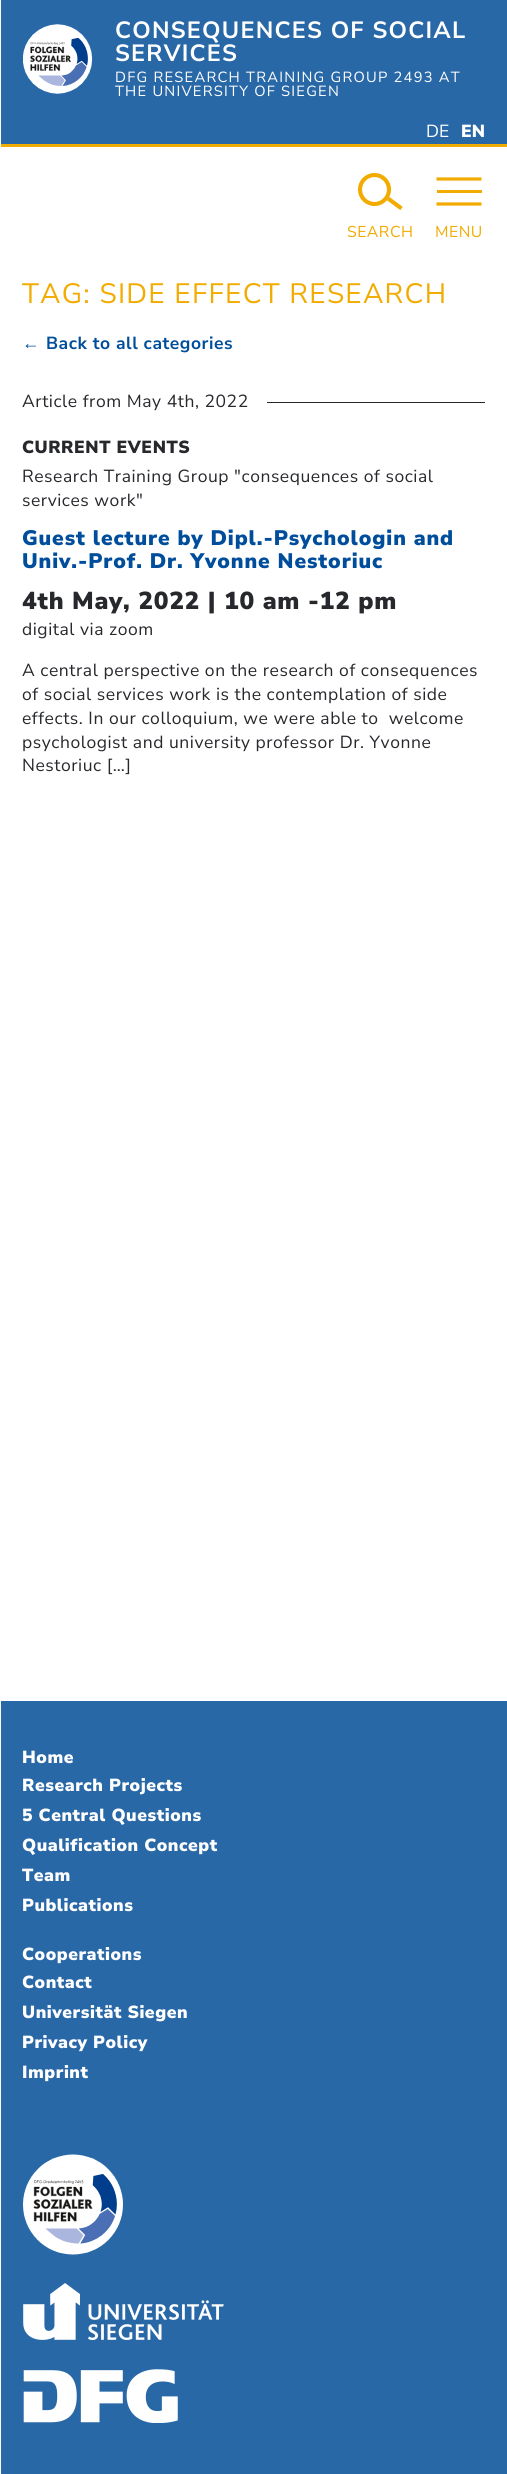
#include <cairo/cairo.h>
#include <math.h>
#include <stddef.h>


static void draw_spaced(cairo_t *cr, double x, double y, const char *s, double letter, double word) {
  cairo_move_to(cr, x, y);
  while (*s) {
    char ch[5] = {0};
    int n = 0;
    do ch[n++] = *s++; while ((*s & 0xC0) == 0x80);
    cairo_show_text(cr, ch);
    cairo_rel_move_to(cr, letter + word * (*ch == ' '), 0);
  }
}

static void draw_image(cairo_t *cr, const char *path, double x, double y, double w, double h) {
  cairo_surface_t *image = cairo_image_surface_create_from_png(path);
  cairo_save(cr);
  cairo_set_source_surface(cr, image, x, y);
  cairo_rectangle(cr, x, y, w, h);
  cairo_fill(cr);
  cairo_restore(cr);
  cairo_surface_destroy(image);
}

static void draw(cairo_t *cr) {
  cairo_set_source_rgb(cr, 1, 1, 1);
  cairo_paint(cr);
  cairo_set_source_rgb(cr, 41 / 255.0, 104 / 255.0, 167 / 255.0);
  cairo_rectangle(cr, 1, 0, 506, 144);
  cairo_fill(cr);
  cairo_set_source_rgb(cr, 242 / 255.0, 171 / 255.0, 0);
  cairo_rectangle(cr, 1, 144, 506, 3);
  cairo_fill(cr);
  draw_image(cr, "images/1.png", 23, 24, 70, 70);
  cairo_arc(cr, 374.5, 189.5, 14.5, 0, 2 * M_PI);
  cairo_set_line_width(cr, 4.1);
  cairo_stroke(cr);
  cairo_new_path(cr);
  cairo_move_to(cr, 388, 198.5);
  cairo_line_to(cr, 401.5, 208.5);
  cairo_stroke(cr);
  cairo_new_path(cr);
  cairo_move_to(cr, 436.5, 179);
  cairo_line_to(cr, 481.5, 179);
  cairo_set_line_width(cr, 3.2);
  cairo_stroke(cr);
  cairo_rectangle(cr, 437, 190, 45, 3);
  cairo_fill(cr);
  cairo_new_path(cr);
  cairo_move_to(cr, 436.5, 204);
  cairo_line_to(cr, 481.5, 204);
  cairo_stroke(cr);
  cairo_set_source_rgb(cr, 38 / 255.0, 40 / 255.0, 44 / 255.0);
  cairo_rectangle(cr, 267, 402, 218, 1);
  cairo_fill(cr);
  cairo_set_source_rgb(cr, 41 / 255.0, 104 / 255.0, 167 / 255.0);
  cairo_rectangle(cr, 1, 1701, 506, 773);
  cairo_fill(cr);
  draw_image(cr, "images/2.png", 23, 2154, 100, 101);
  draw_image(cr, "images/3.png", 23, 2283, 201, 57);
  draw_image(cr, "images/4.png", 23, 2369, 155, 54);
  cairo_select_font_face(cr, "Nunito Sans", CAIRO_FONT_SLANT_NORMAL, CAIRO_FONT_WEIGHT_BOLD);
  cairo_set_font_size(cr, 23.5);
  cairo_set_source_rgb(cr, 1, 1, 1);
  draw_spaced(cr, 115, 38, "CONSEQUENCES OF SOCIAL", 1.25, 0);
  draw_spaced(cr, 115, 61, "SERVICES", 1.25, 0);
  cairo_select_font_face(cr, "Nunito Sans", CAIRO_FONT_SLANT_NORMAL, CAIRO_FONT_WEIGHT_NORMAL);
  cairo_set_font_size(cr, 14.7);
  draw_spaced(cr, 115, 82, "DFG RESEARCH TRAINING GROUP 2493 AT", 1.25, 0);
  draw_spaced(cr, 115, 96, "THE UNIVERSITY OF SIEGEN", 1.25, 0);
  cairo_set_font_size(cr, 17.5);
  cairo_move_to(cr, 426, 137);
  cairo_show_text(cr, "DE");
  cairo_select_font_face(cr, "Nunito Sans Black", CAIRO_FONT_SLANT_NORMAL, CAIRO_FONT_WEIGHT_NORMAL);
  cairo_move_to(cr, 461, 137);
  cairo_show_text(cr, "EN");
  cairo_select_font_face(cr, "Nunito Sans", CAIRO_FONT_SLANT_NORMAL, CAIRO_FONT_WEIGHT_NORMAL);
  cairo_set_font_size(cr, 15.75);
  cairo_set_source_rgb(cr, 242 / 255.0, 171 / 255.0, 0);
  draw_spaced(cr, 347, 237, "SEARCH", 0.5, 0);
  draw_spaced(cr, 435, 237, "MENU", 0.5, 0);
  cairo_set_font_size(cr, 28);
  draw_spaced(cr, 22, 303, "TAG: SIDE EFFECT RESEARCH", 1.25, 0);
  cairo_select_font_face(cr, "Liberation Sans", CAIRO_FONT_SLANT_NORMAL, CAIRO_FONT_WEIGHT_BOLD);
  cairo_set_font_size(cr, 17.5);
  cairo_set_source_rgb(cr, 0, 78 / 255.0, 155 / 255.0);
  draw_spaced(cr, 22, 349, "←", 0.55, 0);
  cairo_select_font_face(cr, "Nunito Sans", CAIRO_FONT_SLANT_NORMAL, CAIRO_FONT_WEIGHT_BOLD);
  draw_spaced(cr, 46, 349, "Back to all categories", 0.55, 0);
  cairo_select_font_face(cr, "Nunito Sans", CAIRO_FONT_SLANT_NORMAL, CAIRO_FONT_WEIGHT_NORMAL);
  cairo_set_source_rgb(cr, 38 / 255.0, 40 / 255.0, 44 / 255.0);
  draw_spaced(cr, 22, 407, "Article from May 4th, 2022", 0.55, 0);
  cairo_select_font_face(cr, "Nunito Sans Black", CAIRO_FONT_SLANT_NORMAL, CAIRO_FONT_WEIGHT_NORMAL);
  draw_spaced(cr, 22, 453, "CURRENT EVENTS", 0.55, 0);
  cairo_select_font_face(cr, "Nunito Sans", CAIRO_FONT_SLANT_NORMAL, CAIRO_FONT_WEIGHT_NORMAL);
  draw_spaced(cr, 22, 482, "Research Training Group \"consequences of social", 0.55, 0);
  draw_spaced(cr, 22, 506, "services work\"", 0.55, 0);
  cairo_select_font_face(cr, "Nunito Sans Black", CAIRO_FONT_SLANT_NORMAL, CAIRO_FONT_WEIGHT_NORMAL);
  cairo_set_font_size(cr, 21);
  cairo_set_source_rgb(cr, 0, 78 / 255.0, 155 / 255.0);
  draw_spaced(cr, 22, 545, "Guest lecture by Dipl.-Psychologin and", 0.9, 0);
  draw_spaced(cr, 22, 568, "Univ.-Prof. Dr. Yvonne Nestoriuc", 0.9, 0);
  cairo_set_font_size(cr, 24.5);
  cairo_set_source_rgb(cr, 38 / 255.0, 40 / 255.0, 44 / 255.0);
  draw_spaced(cr, 22, 609, "4th May, 2022 | 10 am -12 pm", 0.75, 0);
  cairo_select_font_face(cr, "Nunito Sans", CAIRO_FONT_SLANT_NORMAL, CAIRO_FONT_WEIGHT_NORMAL);
  cairo_set_font_size(cr, 17.5);
  draw_spaced(cr, 22, 635, "digital via zoom", 0.55, 0);
  draw_spaced(cr, 22, 676, "A central perspective on the research of consequences", 0.55, 0);
  draw_spaced(cr, 22, 700, "of social services work is the contemplation of side", 0.55, 0);
  draw_spaced(cr, 22, 724, "effects. In our colloquium, we were able to  welcome", 0.55, 0);
  draw_spaced(cr, 22, 748, "psychologist and university professor Dr. Yvonne", 0.55, 0);
  draw_spaced(cr, 22, 771, "Nestoriuc […]", 0.55, 0);
  cairo_select_font_face(cr, "Nunito Sans Black", CAIRO_FONT_SLANT_NORMAL, CAIRO_FONT_WEIGHT_NORMAL);
  cairo_set_source_rgb(cr, 1, 1, 1);
  draw_spaced(cr, 22, 1763, "Home", 0.55, 0);
  draw_spaced(cr, 22, 1791, "Research Projects", 0.55, 0);
  draw_spaced(cr, 22, 1821, "5 Central Questions", 0.55, 0);
  draw_spaced(cr, 22, 1851, "Qualification Concept", 0.55, 0);
  draw_spaced(cr, 22, 1881, "Team", 0.55, 0);
  draw_spaced(cr, 22, 1911, "Publications", 0.55, 0);
  draw_spaced(cr, 22, 1960, "Cooperations", 0.55, 0);
  draw_spaced(cr, 22, 1988, "Contact", 0.55, 0);
  draw_spaced(cr, 22, 2018, "Universität Siegen", 0.55, 0);
  draw_spaced(cr, 22, 2048, "Privacy Policy", 0.55, 0);
  draw_spaced(cr, 22, 2078, "Imprint", 0.55, 0);
}

int main(void) {
  cairo_surface_t *surface = cairo_image_surface_create(CAIRO_FORMAT_RGB24, 507, 2474);
  cairo_t *cr = cairo_create(surface);
  cairo_font_options_t *options = cairo_font_options_create();
  cairo_font_options_set_hint_metrics(options, CAIRO_HINT_METRICS_OFF);
  cairo_font_options_set_hint_style(options, CAIRO_HINT_STYLE_NONE);
  cairo_set_font_options(cr, options);
  cairo_set_miter_limit(cr, 4);
  draw(cr);
  cairo_surface_write_to_png(surface, "out.png");
  cairo_font_options_destroy(options);
  cairo_destroy(cr);
  cairo_surface_destroy(surface);
  return 0;
}
